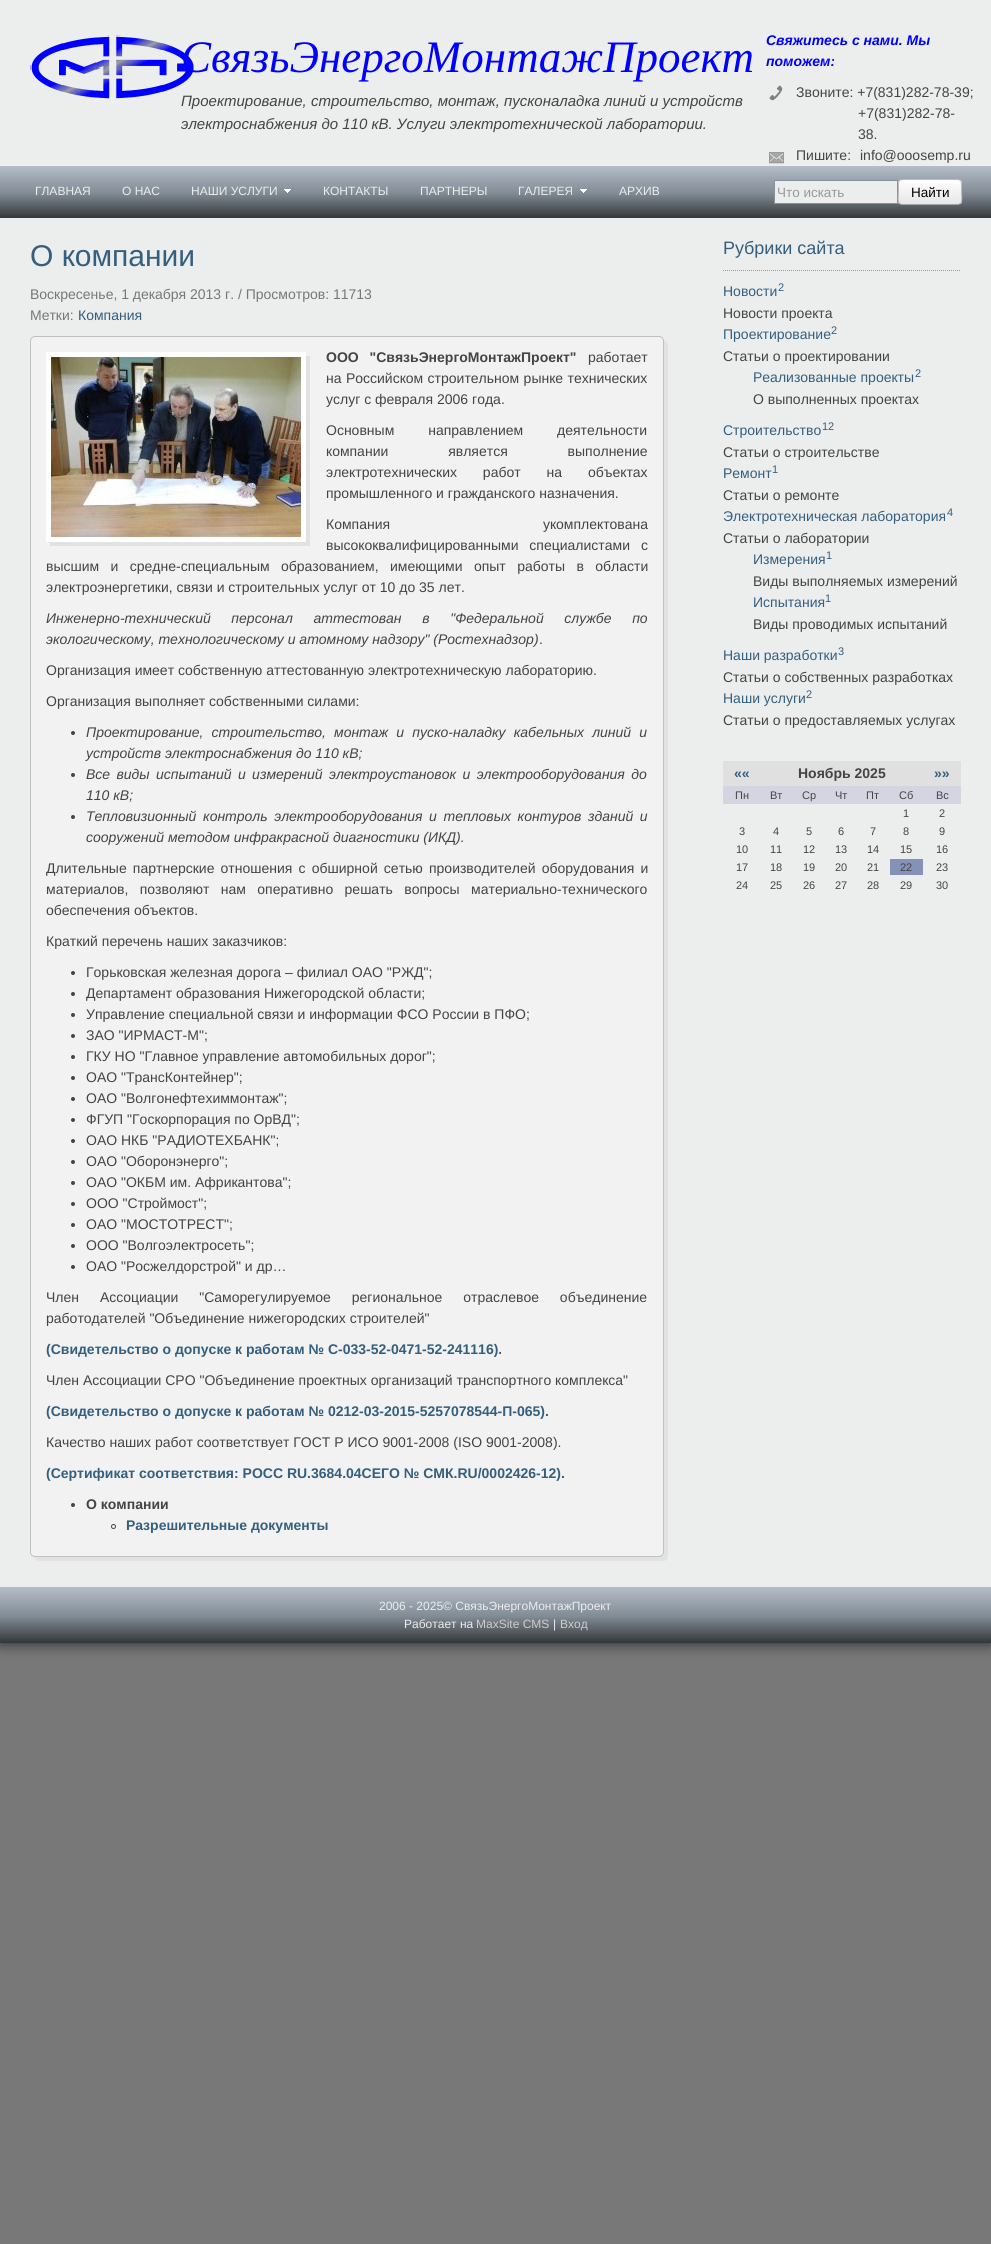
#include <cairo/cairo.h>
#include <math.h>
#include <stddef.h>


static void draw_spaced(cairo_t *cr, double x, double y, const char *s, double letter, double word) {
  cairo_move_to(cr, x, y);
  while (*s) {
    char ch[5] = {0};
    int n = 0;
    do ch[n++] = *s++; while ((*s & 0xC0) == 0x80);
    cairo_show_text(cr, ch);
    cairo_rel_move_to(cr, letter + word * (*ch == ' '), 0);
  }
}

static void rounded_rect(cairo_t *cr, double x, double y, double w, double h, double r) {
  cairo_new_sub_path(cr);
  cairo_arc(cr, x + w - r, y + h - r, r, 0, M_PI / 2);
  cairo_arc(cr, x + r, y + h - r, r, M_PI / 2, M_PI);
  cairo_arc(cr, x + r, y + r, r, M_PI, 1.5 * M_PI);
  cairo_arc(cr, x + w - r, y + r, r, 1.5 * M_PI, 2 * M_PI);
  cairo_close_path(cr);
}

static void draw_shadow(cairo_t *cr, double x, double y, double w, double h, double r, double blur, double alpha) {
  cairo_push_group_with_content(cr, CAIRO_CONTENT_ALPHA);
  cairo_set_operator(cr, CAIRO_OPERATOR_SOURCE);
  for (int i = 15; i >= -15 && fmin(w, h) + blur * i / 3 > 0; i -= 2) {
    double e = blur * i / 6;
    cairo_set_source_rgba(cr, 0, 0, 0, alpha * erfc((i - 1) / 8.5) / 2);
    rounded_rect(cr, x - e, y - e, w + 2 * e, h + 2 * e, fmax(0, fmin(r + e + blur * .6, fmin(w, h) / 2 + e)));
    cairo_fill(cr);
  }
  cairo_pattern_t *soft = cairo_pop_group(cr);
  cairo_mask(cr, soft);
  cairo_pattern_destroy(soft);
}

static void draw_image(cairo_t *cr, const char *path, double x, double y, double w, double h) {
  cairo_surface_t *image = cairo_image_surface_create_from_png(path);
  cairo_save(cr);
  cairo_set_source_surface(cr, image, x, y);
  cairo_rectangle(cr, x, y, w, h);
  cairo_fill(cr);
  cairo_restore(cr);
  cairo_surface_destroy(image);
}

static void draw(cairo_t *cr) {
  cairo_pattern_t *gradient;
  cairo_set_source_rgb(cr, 120 / 255.0, 120 / 255.0, 120 / 255.0);
  cairo_paint(cr);
  cairo_set_source_rgb(cr, 0, 0, 0);
  draw_shadow(cr, 0, 0, 991, 1643, 0, 7.5, 0.7);
  cairo_set_source_rgb(cr, 236 / 255.0, 237 / 255.0, 237 / 255.0);
  cairo_rectangle(cr, 0, 0, 991, 1587);
  cairo_fill(cr);
  draw_image(cr, "images/1.png", 30, 35, 164, 64);
  draw_image(cr, "images/2.png", 769, 85, 14, 16);
  draw_image(cr, "images/3.png", 769, 152, 15, 12);
  gradient = cairo_pattern_create_linear(496, 166, 496, 218);
  cairo_pattern_add_color_stop_rgba(gradient, 0, 181 / 255.0, 189 / 255.0, 200 / 255.0, 1);
  cairo_pattern_add_color_stop_rgba(gradient, 0.52, 130 / 255.0, 140 / 255.0, 149 / 255.0, 1);
  cairo_pattern_add_color_stop_rgba(gradient, 1, 51 / 255.0, 55 / 255.0, 58 / 255.0, 1);
  cairo_set_source(cr, gradient);
  cairo_pattern_destroy(gradient);
  cairo_rectangle(cr, 0, 166, 991, 52);
  cairo_fill(cr);
  draw_image(cr, "images/4.png", 284, 189, 7, 4);
  draw_image(cr, "images/4.png", 580, 189, 7, 4);
  cairo_set_source_rgb(cr, 236 / 255.0, 237 / 255.0, 237 / 255.0);
  cairo_rectangle(cr, 774.5, 180.5, 123, 23);
  cairo_fill_preserve(cr);
  cairo_set_source_rgb(cr, 136 / 255.0, 146 / 255.0, 155 / 255.0);
  cairo_set_line_width(cr, 1);
  cairo_stroke(cr);
  cairo_save(cr);
  rounded_rect(cr, 898, 179, 64, 26, 4);
  cairo_clip(cr);
  gradient = cairo_pattern_create_linear(930, 180, 930, 204);
  cairo_pattern_add_color_stop_rgba(gradient, 0, 1, 1, 1, 1);
  cairo_pattern_add_color_stop_rgba(gradient, 1, 230 / 255.0, 230 / 255.0, 230 / 255.0, 1);
  cairo_set_source(cr, gradient);
  cairo_pattern_destroy(gradient);
  cairo_rectangle(cr, 898, 180, 64, 24);
  cairo_fill(cr);
  cairo_restore(cr);
  cairo_set_source_rgb(cr, 254 / 255.0, 254 / 255.0, 254 / 255.0);
  cairo_new_path(cr);
  cairo_move_to(cr, 902, 181);
  cairo_line_to(cr, 958, 181);
  cairo_curve_to(cr, 960, 181, 961, 182, 961, 184);
  cairo_curve_to(cr, 961, 178, 953, 180, 949, 180);
  cairo_line_to(cr, 911, 180);
  cairo_curve_to(cr, 907, 180, 899, 178, 899, 184);
  cairo_curve_to(cr, 899, 182, 900, 181, 902, 181);
  cairo_close_path(cr);
  cairo_fill(cr);
  cairo_new_path(cr);
  cairo_move_to(cr, 960.5, 203.5);
  cairo_line_to(cr, 958.5, 204.5);
  cairo_line_to(cr, 901.5, 204.5);
  cairo_line_to(cr, 899.5, 203.5);
  cairo_set_source_rgb(cr, 162 / 255.0, 162 / 255.0, 162 / 255.0);
  cairo_stroke(cr);
  cairo_new_path(cr);
  cairo_move_to(cr, 899.5, 203.5);
  cairo_curve_to(cr, 897.5, 201.5, 898.5, 194.5, 898.5, 192);
  cairo_curve_to(cr, 898.5, 178, 897, 179.5, 911.5, 179.5);
  cairo_line_to(cr, 948.5, 179.5);
  cairo_curve_to(cr, 963, 179.5, 961.5, 178, 961.5, 192);
  cairo_curve_to(cr, 961.5, 194.5, 962.5, 201.5, 960.5, 203.5);
  cairo_set_source_rgb(cr, 187 / 255.0, 187 / 255.0, 187 / 255.0);
  cairo_stroke(cr);
  cairo_set_source_rgb(cr, 226 / 255.0, 226 / 255.0, 226 / 255.0);
  cairo_new_path(cr);
  cairo_move_to(cr, 34, 1557);
  cairo_curve_to(cr, 35, 1559, 37, 1561, 39, 1561);
  cairo_line_to(cr, 663, 1561);
  cairo_curve_to(cr, 666, 1561, 668, 1559, 668, 1556);
  cairo_line_to(cr, 668, 345);
  cairo_curve_to(cr, 668, 343, 666, 341, 664, 340);
  cairo_line_to(cr, 664, 1552);
  cairo_curve_to(cr, 664, 1555, 662, 1557, 659, 1557);
  cairo_close_path(cr);
  cairo_fill(cr);
  cairo_set_source_rgb(cr, 242 / 255.0, 242 / 255.0, 242 / 255.0);
  rounded_rect(cr, 30.5, 336.5, 633, 1220, 4.5);
  cairo_fill_preserve(cr);
  cairo_set_source_rgb(cr, 192 / 255.0, 192 / 255.0, 192 / 255.0);
  cairo_stroke(cr);
  cairo_set_source_rgb(cr, 68 / 255.0, 68 / 255.0, 68 / 255.0);
  cairo_arc(cr, 73, 733, 2, 0, 2 * M_PI);
  cairo_fill(cr);
  cairo_arc(cr, 73, 775, 2, 0, 2 * M_PI);
  cairo_fill(cr);
  cairo_arc(cr, 73, 817, 2, 0, 2 * M_PI);
  cairo_fill(cr);
  cairo_arc(cr, 73, 973, 2, 0, 2 * M_PI);
  cairo_fill(cr);
  cairo_arc(cr, 73, 994, 2, 0, 2 * M_PI);
  cairo_fill(cr);
  cairo_arc(cr, 73, 1015, 2, 0, 2 * M_PI);
  cairo_fill(cr);
  cairo_arc(cr, 73, 1036, 2, 0, 2 * M_PI);
  cairo_fill(cr);
  cairo_arc(cr, 73, 1057, 2, 0, 2 * M_PI);
  cairo_fill(cr);
  cairo_arc(cr, 73, 1078, 2, 0, 2 * M_PI);
  cairo_fill(cr);
  cairo_arc(cr, 73, 1099, 2, 0, 2 * M_PI);
  cairo_fill(cr);
  cairo_arc(cr, 73, 1120, 2, 0, 2 * M_PI);
  cairo_fill(cr);
  cairo_arc(cr, 73, 1141, 2, 0, 2 * M_PI);
  cairo_fill(cr);
  cairo_arc(cr, 73, 1162, 2, 0, 2 * M_PI);
  cairo_fill(cr);
  cairo_arc(cr, 73, 1183, 2, 0, 2 * M_PI);
  cairo_fill(cr);
  cairo_arc(cr, 73, 1204, 2, 0, 2 * M_PI);
  cairo_fill(cr);
  cairo_arc(cr, 73, 1225, 2, 0, 2 * M_PI);
  cairo_fill(cr);
  cairo_arc(cr, 73, 1246, 2, 0, 2 * M_PI);
  cairo_fill(cr);
  cairo_arc(cr, 73, 1267, 2, 0, 2 * M_PI);
  cairo_fill(cr);
  cairo_set_source_rgb(cr, 226 / 255.0, 226 / 255.0, 226 / 255.0);
  cairo_new_path(cr);
  cairo_move_to(cr, 50, 542);
  cairo_line_to(cr, 50, 546);
  cairo_line_to(cr, 310, 546);
  cairo_line_to(cr, 310, 356);
  cairo_line_to(cr, 306, 356);
  cairo_line_to(cr, 306, 542);
  cairo_close_path(cr);
  cairo_fill(cr);
  cairo_rectangle(cr, 48.5, 354.5, 255, 185);
  cairo_set_source_rgb(cr, 1, 1, 1);
  cairo_set_line_width(cr, 5);
  cairo_stroke(cr);
  draw_image(cr, "images/5.png", 51, 357, 250, 180);
  cairo_set_source_rgb(cr, 68 / 255.0, 68 / 255.0, 68 / 255.0);
  cairo_arc(cr, 73, 1505, 2, 0, 2 * M_PI);
  cairo_fill(cr);
  cairo_arc(cr, 113.5, 1526.5, 2, 0, 2 * M_PI);
  cairo_set_line_width(cr, 1);
  cairo_stroke(cr);
  cairo_new_path(cr);
  cairo_move_to(cr, 723, 270.5);
  cairo_line_to(cr, 961, 270.5);
  cairo_set_source_rgb(cr, 141 / 255.0, 154 / 255.0, 160 / 255.0);
  cairo_set_dash(cr, (double[]){1, 1}, 2, 0);
  cairo_stroke(cr);
  cairo_set_source_rgb(cr, 224 / 255.0, 224 / 255.0, 224 / 255.0);
  cairo_rectangle(cr, 723, 761, 238, 25);
  cairo_fill(cr);
  cairo_set_source_rgb(cr, 213 / 255.0, 213 / 255.0, 225 / 255.0);
  cairo_rectangle(cr, 723, 786, 238, 18);
  cairo_fill(cr);
  cairo_set_source_rgb(cr, 133 / 255.0, 145 / 255.0, 183 / 255.0);
  cairo_rectangle(cr, 890, 859, 33, 16);
  cairo_fill(cr);
  gradient = cairo_pattern_create_linear(496, 1587, 496, 1643);
  cairo_pattern_add_color_stop_rgba(gradient, 0, 181 / 255.0, 189 / 255.0, 200 / 255.0, 1);
  cairo_pattern_add_color_stop_rgba(gradient, 0.52, 130 / 255.0, 140 / 255.0, 149 / 255.0, 1);
  cairo_pattern_add_color_stop_rgba(gradient, 1, 51 / 255.0, 55 / 255.0, 58 / 255.0, 1);
  cairo_set_source(cr, gradient);
  cairo_pattern_destroy(gradient);
  cairo_rectangle(cr, 0, 1587, 991, 56);
  cairo_fill(cr);
  cairo_select_font_face(cr, "Liberation Serif", CAIRO_FONT_SLANT_ITALIC, CAIRO_FONT_WEIGHT_NORMAL);
  cairo_set_font_size(cr, 45);
  cairo_set_source_rgb(cr, 0, 0, 1);
  cairo_move_to(cr, 181, 72);
  cairo_show_text(cr, "СвязьЭнергоМонтажПроект");
  cairo_select_font_face(cr, "Liberation Sans", CAIRO_FONT_SLANT_ITALIC, CAIRO_FONT_WEIGHT_NORMAL);
  cairo_set_font_size(cr, 15);
  cairo_set_source_rgb(cr, 68 / 255.0, 68 / 255.0, 68 / 255.0);
  cairo_move_to(cr, 181, 106);
  cairo_show_text(cr, "Проектирование, строительство, монтаж, пусконаладка линий и устройств");
  cairo_move_to(cr, 181, 129);
  cairo_show_text(cr, "электроснабжения до 110 кВ. Услуги электротехнической лаборатории.");
  cairo_select_font_face(cr, "Liberation Sans", CAIRO_FONT_SLANT_ITALIC, CAIRO_FONT_WEIGHT_BOLD);
  cairo_set_font_size(cr, 14);
  cairo_set_source_rgb(cr, 0, 0, 1);
  cairo_move_to(cr, 766, 45);
  cairo_show_text(cr, "Свяжитесь с нами. Мы");
  cairo_move_to(cr, 766, 66);
  cairo_show_text(cr, "поможем:");
  cairo_select_font_face(cr, "Liberation Sans", CAIRO_FONT_SLANT_NORMAL, CAIRO_FONT_WEIGHT_NORMAL);
  cairo_set_source_rgb(cr, 68 / 255.0, 68 / 255.0, 68 / 255.0);
  cairo_move_to(cr, 796, 97);
  cairo_show_text(cr, "Звоните: +7(831)282-78-39;");
  cairo_move_to(cr, 858, 118);
  cairo_show_text(cr, "+7(831)282-78-");
  cairo_move_to(cr, 858, 139);
  cairo_show_text(cr, "38.");
  cairo_move_to(cr, 796, 160);
  cairo_show_text(cr, "Пишите:");
  cairo_move_to(cr, 860, 160);
  cairo_show_text(cr, "info@ooosemp.ru");
  cairo_set_font_size(cr, 12);
  cairo_set_source_rgb(cr, 236 / 255.0, 237 / 255.0, 237 / 255.0);
  cairo_move_to(cr, 35, 195);
  cairo_show_text(cr, "ГЛАВНАЯ");
  cairo_move_to(cr, 122, 195);
  cairo_show_text(cr, "О НАС");
  cairo_move_to(cr, 191, 195);
  cairo_show_text(cr, "НАШИ УСЛУГИ");
  cairo_move_to(cr, 323, 195);
  cairo_show_text(cr, "КОНТАКТЫ");
  cairo_move_to(cr, 420, 195);
  cairo_show_text(cr, "ПАРТНЕРЫ");
  cairo_move_to(cr, 518, 195);
  cairo_show_text(cr, "ГАЛЕРЕЯ");
  cairo_move_to(cr, 619, 195);
  cairo_show_text(cr, "АРХИВ");
  cairo_set_font_size(cr, 13.5);
  cairo_set_source_rgb(cr, 153 / 255.0, 153 / 255.0, 153 / 255.0);
  cairo_move_to(cr, 777, 197);
  cairo_show_text(cr, "Что искать");
  cairo_set_source_rgb(cr, 0, 0, 0);
  cairo_move_to(cr, 911, 197);
  cairo_show_text(cr, "Найти");
  cairo_set_font_size(cr, 30);
  cairo_set_source_rgb(cr, 52 / 255.0, 95 / 255.0, 126 / 255.0);
  cairo_move_to(cr, 30, 266);
  cairo_show_text(cr, "О компании");
  cairo_set_font_size(cr, 14);
  cairo_set_source_rgb(cr, 119 / 255.0, 119 / 255.0, 119 / 255.0);
  cairo_move_to(cr, 30, 299);
  cairo_show_text(cr, "Воскресенье, 1 декабря 2013 г. / Просмотров: 11713");
  cairo_move_to(cr, 30, 320);
  cairo_show_text(cr, "Метки:");
  cairo_set_source_rgb(cr, 52 / 255.0, 95 / 255.0, 126 / 255.0);
  cairo_move_to(cr, 78, 320);
  cairo_show_text(cr, "Компания");
  cairo_select_font_face(cr, "Liberation Sans", CAIRO_FONT_SLANT_NORMAL, CAIRO_FONT_WEIGHT_BOLD);
  cairo_set_source_rgb(cr, 68 / 255.0, 68 / 255.0, 68 / 255.0);
  draw_spaced(cr, 326, 362, "ООО \"СвязьЭнергоМонтажПроект\"", 0, 7);
  cairo_select_font_face(cr, "Liberation Sans", CAIRO_FONT_SLANT_NORMAL, CAIRO_FONT_WEIGHT_NORMAL);
  cairo_move_to(cr, 588, 362);
  cairo_show_text(cr, "работает");
  draw_spaced(cr, 326, 383, "на Российском строительном рынке технических", 0, 0.5);
  cairo_move_to(cr, 326, 404);
  cairo_show_text(cr, "услуг с февраля 2006 года.");
  draw_spaced(cr, 326, 435, "Основным направлением деятельности", 0, 30);
  draw_spaced(cr, 326, 456, "компании является выполнение", 0, 56);
  draw_spaced(cr, 326, 477, "электротехнических работ на объектах", 0, 22);
  cairo_move_to(cr, 326, 498);
  cairo_show_text(cr, "промышленного и гражданского назначения.");
  draw_spaced(cr, 326, 529, "Компания укомплектована", 0, 149);
  draw_spaced(cr, 326, 550, "высококвалифицированными специалистами с", 0, 7);
  draw_spaced(cr, 46, 571, "высшим и средне-специальным образованием, имеющими опыт работы в области", 0, 7.5);
  cairo_move_to(cr, 46, 592);
  cairo_show_text(cr, "электроэнергетики, связи и строительных услуг от 10 до 35 лет.");
  cairo_select_font_face(cr, "Liberation Sans", CAIRO_FONT_SLANT_ITALIC, CAIRO_FONT_WEIGHT_NORMAL);
  draw_spaced(cr, 46, 623, "Инженерно-технический персонал аттестован в \"Федеральной службе по", 0, 16.75);
  cairo_move_to(cr, 46, 644);
  cairo_show_text(cr, "экологическому, технологическому и атомному надзору\" (Ростехнадзор)");
  cairo_select_font_face(cr, "Liberation Sans", CAIRO_FONT_SLANT_NORMAL, CAIRO_FONT_WEIGHT_NORMAL);
  cairo_move_to(cr, 539, 644);
  cairo_show_text(cr, ".");
  cairo_move_to(cr, 46, 675);
  cairo_show_text(cr, "Организация имеет собственную аттестованную электротехническую лабораторию.");
  cairo_move_to(cr, 46, 706);
  cairo_show_text(cr, "Организация выполняет собственными силами:");
  cairo_select_font_face(cr, "Liberation Sans", CAIRO_FONT_SLANT_ITALIC, CAIRO_FONT_WEIGHT_NORMAL);
  draw_spaced(cr, 86, 737, "Проектирование, строительство, монтаж и пуско-наладку кабельных линий и", 0, 4.25);
  cairo_move_to(cr, 86, 758);
  cairo_show_text(cr, "устройств электроснабжения до 110 кВ;");
  draw_spaced(cr, 86, 779, "Все виды испытаний и измерений электроустановок и электрооборудования до", 0, 2.5);
  cairo_move_to(cr, 86, 800);
  cairo_show_text(cr, "110 кВ;");
  draw_spaced(cr, 86, 821, "Тепловизионный контроль электрооборудования и тепловых контуров зданий и", 0, 2.75);
  cairo_move_to(cr, 86, 842);
  cairo_show_text(cr, "сооружений методом инфракрасной диагностики (ИКД).");
  cairo_select_font_face(cr, "Liberation Sans", CAIRO_FONT_SLANT_NORMAL, CAIRO_FONT_WEIGHT_NORMAL);
  draw_spaced(cr, 46, 873, "Длительные партнерские отношения с обширной сетью производителей оборудования и", 0, 2.25);
  draw_spaced(cr, 46, 894, "материалов, позволяют нам оперативно решать вопросы материально-технического", 0, 7.5);
  cairo_move_to(cr, 46, 915);
  cairo_show_text(cr, "обеспечения объектов.");
  cairo_move_to(cr, 46, 946);
  cairo_show_text(cr, "Краткий перечень наших заказчиков:");
  cairo_move_to(cr, 86, 977);
  cairo_show_text(cr, "Горьковская железная дорога – филиал ОАО \"РЖД\";");
  cairo_move_to(cr, 86, 998);
  cairo_show_text(cr, "Департамент образования Нижегородской области;");
  cairo_move_to(cr, 86, 1019);
  cairo_show_text(cr, "Управление специальной связи и информации ФСО России в ПФО;");
  cairo_move_to(cr, 86, 1040);
  cairo_show_text(cr, "ЗАО \"ИРМАСТ-М\";");
  cairo_move_to(cr, 86, 1061);
  cairo_show_text(cr, "ГКУ НО \"Главное управление автомобильных дорог\";");
  cairo_move_to(cr, 86, 1082);
  cairo_show_text(cr, "ОАО \"ТрансКонтейнер\";");
  cairo_move_to(cr, 86, 1103);
  cairo_show_text(cr, "ОАО \"Волгонефтехиммонтаж\";");
  cairo_move_to(cr, 86, 1124);
  cairo_show_text(cr, "ФГУП \"Госкорпорация по ОрВД\";");
  cairo_move_to(cr, 86, 1145);
  cairo_show_text(cr, "ОАО НКБ \"РАДИОТЕХБАНК\";");
  cairo_move_to(cr, 86, 1166);
  cairo_show_text(cr, "ОАО \"Оборонэнерго\";");
  cairo_move_to(cr, 86, 1187);
  cairo_show_text(cr, "ОАО \"ОКБМ им. Африкантова\";");
  cairo_move_to(cr, 86, 1208);
  cairo_show_text(cr, "ООО \"Строймост\";");
  cairo_move_to(cr, 86, 1229);
  cairo_show_text(cr, "ОАО \"МОСТОТРЕСТ\";");
  cairo_move_to(cr, 86, 1250);
  cairo_show_text(cr, "ООО \"Волгоэлектросеть\";");
  cairo_move_to(cr, 86, 1271);
  cairo_show_text(cr, "ОАО \"Росжелдорстрой\" и др…");
  draw_spaced(cr, 46, 1302, "Член Ассоциации \"Саморегулируемое региональное отраслевое объединение", 0, 17);
  cairo_move_to(cr, 46, 1323);
  cairo_show_text(cr, "работодателей \"Объединение нижегородских строителей\"");
  cairo_select_font_face(cr, "Liberation Sans", CAIRO_FONT_SLANT_NORMAL, CAIRO_FONT_WEIGHT_BOLD);
  cairo_set_source_rgb(cr, 52 / 255.0, 95 / 255.0, 126 / 255.0);
  cairo_move_to(cr, 46, 1354);
  cairo_show_text(cr, "(Свидетельство о допуске к работам № C-033-52-0471-52-241116).");
  cairo_select_font_face(cr, "Liberation Sans", CAIRO_FONT_SLANT_NORMAL, CAIRO_FONT_WEIGHT_NORMAL);
  cairo_set_source_rgb(cr, 68 / 255.0, 68 / 255.0, 68 / 255.0);
  cairo_move_to(cr, 46, 1385);
  cairo_show_text(cr, "Член Ассоциации СРО \"Объединение проектных организаций транспортного комплекса\"");
  cairo_select_font_face(cr, "Liberation Sans", CAIRO_FONT_SLANT_NORMAL, CAIRO_FONT_WEIGHT_BOLD);
  cairo_set_source_rgb(cr, 52 / 255.0, 95 / 255.0, 126 / 255.0);
  cairo_move_to(cr, 46, 1416);
  cairo_show_text(cr, "(Свидетельство о допуске к работам № 0212-03-2015-5257078544-П-065).");
  cairo_select_font_face(cr, "Liberation Sans", CAIRO_FONT_SLANT_NORMAL, CAIRO_FONT_WEIGHT_NORMAL);
  cairo_set_source_rgb(cr, 68 / 255.0, 68 / 255.0, 68 / 255.0);
  cairo_move_to(cr, 46, 1447);
  cairo_show_text(cr, "Качество наших работ соответствует ГОСТ Р ИСО 9001-2008 (ISO 9001-2008).");
  cairo_select_font_face(cr, "Liberation Sans", CAIRO_FONT_SLANT_NORMAL, CAIRO_FONT_WEIGHT_BOLD);
  cairo_set_source_rgb(cr, 52 / 255.0, 95 / 255.0, 126 / 255.0);
  cairo_move_to(cr, 46, 1478);
  cairo_show_text(cr, "(Сертификат соответствия: РОСС RU.3684.04СЕГО № СМК.RU/0002426-12).");
  cairo_set_source_rgb(cr, 68 / 255.0, 68 / 255.0, 68 / 255.0);
  cairo_move_to(cr, 86, 1509);
  cairo_show_text(cr, "О компании");
  cairo_set_source_rgb(cr, 52 / 255.0, 95 / 255.0, 126 / 255.0);
  cairo_move_to(cr, 126, 1530);
  cairo_show_text(cr, "Разрешительные документы");
  cairo_select_font_face(cr, "Liberation Sans", CAIRO_FONT_SLANT_NORMAL, CAIRO_FONT_WEIGHT_NORMAL);
  cairo_set_font_size(cr, 18);
  cairo_move_to(cr, 723, 254);
  cairo_show_text(cr, "Рубрики сайта");
  cairo_set_font_size(cr, 14);
  cairo_move_to(cr, 723, 296);
  cairo_show_text(cr, "Новости");
  cairo_set_font_size(cr, 11);
  cairo_move_to(cr, 778, 291);
  cairo_show_text(cr, "2");
  cairo_set_font_size(cr, 14);
  cairo_set_source_rgb(cr, 68 / 255.0, 68 / 255.0, 68 / 255.0);
  cairo_move_to(cr, 723, 318);
  cairo_show_text(cr, "Новости проекта");
  cairo_set_source_rgb(cr, 52 / 255.0, 95 / 255.0, 126 / 255.0);
  cairo_move_to(cr, 723, 339);
  cairo_show_text(cr, "Проектирование");
  cairo_set_font_size(cr, 11);
  cairo_move_to(cr, 831, 334);
  cairo_show_text(cr, "2");
  cairo_set_font_size(cr, 14);
  cairo_set_source_rgb(cr, 68 / 255.0, 68 / 255.0, 68 / 255.0);
  cairo_move_to(cr, 723, 361);
  cairo_show_text(cr, "Статьи о проектировании");
  cairo_set_source_rgb(cr, 52 / 255.0, 95 / 255.0, 126 / 255.0);
  cairo_move_to(cr, 753, 382);
  cairo_show_text(cr, "Реализованные проекты");
  cairo_set_font_size(cr, 11);
  cairo_move_to(cr, 915, 377);
  cairo_show_text(cr, "2");
  cairo_set_font_size(cr, 14);
  cairo_set_source_rgb(cr, 68 / 255.0, 68 / 255.0, 68 / 255.0);
  cairo_move_to(cr, 753, 404);
  cairo_show_text(cr, "О выполненных проектах");
  cairo_set_source_rgb(cr, 52 / 255.0, 95 / 255.0, 126 / 255.0);
  cairo_move_to(cr, 723, 435);
  cairo_show_text(cr, "Строительство");
  cairo_set_font_size(cr, 11);
  cairo_move_to(cr, 822, 430);
  cairo_show_text(cr, "12");
  cairo_set_font_size(cr, 14);
  cairo_set_source_rgb(cr, 68 / 255.0, 68 / 255.0, 68 / 255.0);
  cairo_move_to(cr, 723, 457);
  cairo_show_text(cr, "Статьи о строительстве");
  cairo_set_source_rgb(cr, 52 / 255.0, 95 / 255.0, 126 / 255.0);
  cairo_move_to(cr, 723, 478);
  cairo_show_text(cr, "Ремонт");
  cairo_set_font_size(cr, 11);
  cairo_move_to(cr, 772, 473);
  cairo_show_text(cr, "1");
  cairo_set_font_size(cr, 14);
  cairo_set_source_rgb(cr, 68 / 255.0, 68 / 255.0, 68 / 255.0);
  cairo_move_to(cr, 723, 500);
  cairo_show_text(cr, "Статьи о ремонте");
  cairo_set_source_rgb(cr, 52 / 255.0, 95 / 255.0, 126 / 255.0);
  cairo_move_to(cr, 723, 521);
  cairo_show_text(cr, "Электротехническая лаборатория");
  cairo_set_font_size(cr, 11);
  cairo_move_to(cr, 947, 516);
  cairo_show_text(cr, "4");
  cairo_set_font_size(cr, 14);
  cairo_set_source_rgb(cr, 68 / 255.0, 68 / 255.0, 68 / 255.0);
  cairo_move_to(cr, 723, 543);
  cairo_show_text(cr, "Статьи о лаборатории");
  cairo_set_source_rgb(cr, 52 / 255.0, 95 / 255.0, 126 / 255.0);
  cairo_move_to(cr, 753, 564);
  cairo_show_text(cr, "Измерения");
  cairo_set_font_size(cr, 11);
  cairo_move_to(cr, 826, 559);
  cairo_show_text(cr, "1");
  cairo_set_font_size(cr, 14);
  cairo_set_source_rgb(cr, 68 / 255.0, 68 / 255.0, 68 / 255.0);
  cairo_move_to(cr, 753, 586);
  cairo_show_text(cr, "Виды выполняемых измерений");
  cairo_set_source_rgb(cr, 52 / 255.0, 95 / 255.0, 126 / 255.0);
  cairo_move_to(cr, 753, 607);
  cairo_show_text(cr, "Испытания");
  cairo_set_font_size(cr, 11);
  cairo_move_to(cr, 825, 602);
  cairo_show_text(cr, "1");
  cairo_set_font_size(cr, 14);
  cairo_set_source_rgb(cr, 68 / 255.0, 68 / 255.0, 68 / 255.0);
  cairo_move_to(cr, 753, 629);
  cairo_show_text(cr, "Виды проводимых испытаний");
  cairo_set_source_rgb(cr, 52 / 255.0, 95 / 255.0, 126 / 255.0);
  cairo_move_to(cr, 723, 660);
  cairo_show_text(cr, "Наши разработки");
  cairo_set_font_size(cr, 11);
  cairo_move_to(cr, 838, 655);
  cairo_show_text(cr, "3");
  cairo_set_font_size(cr, 14);
  cairo_set_source_rgb(cr, 68 / 255.0, 68 / 255.0, 68 / 255.0);
  cairo_move_to(cr, 723, 682);
  cairo_show_text(cr, "Статьи о собственных разработках");
  cairo_set_source_rgb(cr, 52 / 255.0, 95 / 255.0, 126 / 255.0);
  cairo_move_to(cr, 723, 703);
  cairo_show_text(cr, "Наши услуги");
  cairo_set_font_size(cr, 11);
  cairo_move_to(cr, 806, 698);
  cairo_show_text(cr, "2");
  cairo_set_font_size(cr, 14);
  cairo_set_source_rgb(cr, 68 / 255.0, 68 / 255.0, 68 / 255.0);
  cairo_move_to(cr, 723, 725);
  cairo_show_text(cr, "Статьи о предоставляемых услугах");
  cairo_select_font_face(cr, "Liberation Sans", CAIRO_FONT_SLANT_NORMAL, CAIRO_FONT_WEIGHT_BOLD);
  cairo_set_source_rgb(cr, 52 / 255.0, 95 / 255.0, 126 / 255.0);
  cairo_move_to(cr, 734, 778);
  cairo_show_text(cr, "««");
  cairo_set_source_rgb(cr, 68 / 255.0, 68 / 255.0, 68 / 255.0);
  cairo_move_to(cr, 798, 778);
  cairo_show_text(cr, "Ноябрь 2025");
  cairo_set_source_rgb(cr, 52 / 255.0, 95 / 255.0, 126 / 255.0);
  cairo_move_to(cr, 934, 778);
  cairo_show_text(cr, "»»");
  cairo_select_font_face(cr, "Liberation Sans", CAIRO_FONT_SLANT_NORMAL, CAIRO_FONT_WEIGHT_NORMAL);
  cairo_set_font_size(cr, 11);
  cairo_set_source_rgb(cr, 68 / 255.0, 68 / 255.0, 68 / 255.0);
  cairo_move_to(cr, 735, 799);
  cairo_show_text(cr, "Пн");
  cairo_move_to(cr, 770, 799);
  cairo_show_text(cr, "Вт");
  cairo_move_to(cr, 802, 799);
  cairo_show_text(cr, "Ср");
  cairo_move_to(cr, 835, 799);
  cairo_show_text(cr, "Чт");
  cairo_move_to(cr, 866, 799);
  cairo_show_text(cr, "Пт");
  cairo_move_to(cr, 899, 799);
  cairo_show_text(cr, "Сб");
  cairo_move_to(cr, 936, 799);
  cairo_show_text(cr, "Вс");
  cairo_move_to(cr, 903, 817);
  cairo_show_text(cr, "1");
  cairo_move_to(cr, 939, 817);
  cairo_show_text(cr, "2");
  cairo_move_to(cr, 739, 835);
  cairo_show_text(cr, "3");
  cairo_move_to(cr, 773, 835);
  cairo_show_text(cr, "4");
  cairo_move_to(cr, 806, 835);
  cairo_show_text(cr, "5");
  cairo_move_to(cr, 838, 835);
  cairo_show_text(cr, "6");
  cairo_move_to(cr, 870, 835);
  cairo_show_text(cr, "7");
  cairo_move_to(cr, 903, 835);
  cairo_show_text(cr, "8");
  cairo_move_to(cr, 939, 835);
  cairo_show_text(cr, "9");
  cairo_move_to(cr, 736, 853);
  cairo_show_text(cr, "10");
  cairo_move_to(cr, 770, 853);
  cairo_show_text(cr, "11");
  cairo_move_to(cr, 803, 853);
  cairo_show_text(cr, "12");
  cairo_move_to(cr, 835, 853);
  cairo_show_text(cr, "13");
  cairo_move_to(cr, 867, 853);
  cairo_show_text(cr, "14");
  cairo_move_to(cr, 900, 853);
  cairo_show_text(cr, "15");
  cairo_move_to(cr, 936, 853);
  cairo_show_text(cr, "16");
  cairo_move_to(cr, 736, 871);
  cairo_show_text(cr, "17");
  cairo_move_to(cr, 770, 871);
  cairo_show_text(cr, "18");
  cairo_move_to(cr, 803, 871);
  cairo_show_text(cr, "19");
  cairo_move_to(cr, 835, 871);
  cairo_show_text(cr, "20");
  cairo_move_to(cr, 867, 871);
  cairo_show_text(cr, "21");
  cairo_move_to(cr, 900, 871);
  cairo_show_text(cr, "22");
  cairo_move_to(cr, 936, 871);
  cairo_show_text(cr, "23");
  cairo_move_to(cr, 736, 889);
  cairo_show_text(cr, "24");
  cairo_move_to(cr, 770, 889);
  cairo_show_text(cr, "25");
  cairo_move_to(cr, 803, 889);
  cairo_show_text(cr, "26");
  cairo_move_to(cr, 835, 889);
  cairo_show_text(cr, "27");
  cairo_move_to(cr, 867, 889);
  cairo_show_text(cr, "28");
  cairo_move_to(cr, 900, 889);
  cairo_show_text(cr, "29");
  cairo_move_to(cr, 936, 889);
  cairo_show_text(cr, "30");
  cairo_set_font_size(cr, 12);
  cairo_set_source_rgb(cr, 236 / 255.0, 237 / 255.0, 237 / 255.0);
  cairo_move_to(cr, 379, 1610);
  cairo_show_text(cr, "2006 - 2025© СвязьЭнергоМонтажПроект");
  cairo_move_to(cr, 404, 1628);
  cairo_show_text(cr, "Работает на");
  cairo_set_source_rgb(cr, 204 / 255.0, 204 / 255.0, 204 / 255.0);
  cairo_move_to(cr, 476, 1628);
  cairo_show_text(cr, "MaxSite CMS");
  cairo_set_source_rgb(cr, 236 / 255.0, 237 / 255.0, 237 / 255.0);
  cairo_move_to(cr, 553, 1628);
  cairo_show_text(cr, "|");
  cairo_set_source_rgb(cr, 204 / 255.0, 204 / 255.0, 204 / 255.0);
  cairo_move_to(cr, 560, 1628);
  cairo_show_text(cr, "Вход");
}

int main(void) {
  cairo_surface_t *surface = cairo_image_surface_create(CAIRO_FORMAT_RGB24, 991, 2244);
  cairo_t *cr = cairo_create(surface);
  cairo_font_options_t *options = cairo_font_options_create();
  cairo_font_options_set_hint_metrics(options, CAIRO_HINT_METRICS_OFF);
  cairo_font_options_set_hint_style(options, CAIRO_HINT_STYLE_NONE);
  cairo_set_font_options(cr, options);
  cairo_set_miter_limit(cr, 4);
  draw(cr);
  cairo_surface_write_to_png(surface, "out.png");
  cairo_font_options_destroy(options);
  cairo_destroy(cr);
  cairo_surface_destroy(surface);
  return 0;
}
